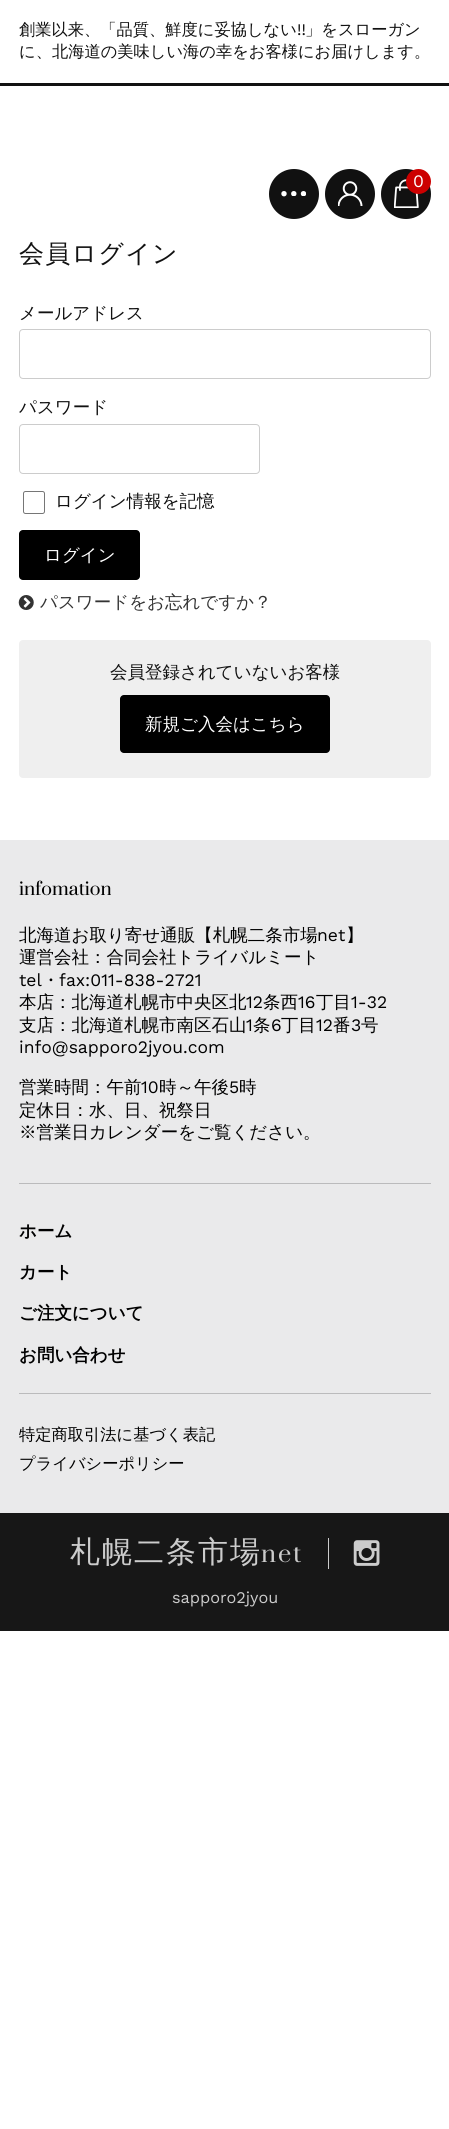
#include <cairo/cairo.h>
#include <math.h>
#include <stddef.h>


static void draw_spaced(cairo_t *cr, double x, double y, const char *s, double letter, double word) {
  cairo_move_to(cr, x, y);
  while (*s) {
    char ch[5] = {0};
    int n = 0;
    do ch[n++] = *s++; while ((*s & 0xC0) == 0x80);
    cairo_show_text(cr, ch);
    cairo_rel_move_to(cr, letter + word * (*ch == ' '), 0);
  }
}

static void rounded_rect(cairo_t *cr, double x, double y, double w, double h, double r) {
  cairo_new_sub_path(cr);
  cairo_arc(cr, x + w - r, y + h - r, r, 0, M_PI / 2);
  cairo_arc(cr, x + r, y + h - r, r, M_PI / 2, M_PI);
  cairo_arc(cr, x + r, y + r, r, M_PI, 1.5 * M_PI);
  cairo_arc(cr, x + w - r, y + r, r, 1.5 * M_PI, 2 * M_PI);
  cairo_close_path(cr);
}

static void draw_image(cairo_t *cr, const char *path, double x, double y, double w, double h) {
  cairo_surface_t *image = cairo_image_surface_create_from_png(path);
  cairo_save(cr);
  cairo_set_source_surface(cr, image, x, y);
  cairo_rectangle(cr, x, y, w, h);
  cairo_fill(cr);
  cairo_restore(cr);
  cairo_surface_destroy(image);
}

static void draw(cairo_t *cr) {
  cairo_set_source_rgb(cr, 1, 1, 1);
  cairo_paint(cr);
  cairo_set_source_rgb(cr, 17 / 255.0, 17 / 255.0, 17 / 255.0);
  cairo_rectangle(cr, 0, 83, 449, 3);
  cairo_fill(cr);
  cairo_arc(cr, 294, 194, 25, 0, 2 * M_PI);
  cairo_fill(cr);
  cairo_set_source_rgb(cr, 1, 1, 1);
  cairo_arc(cr, 284, 193.7, 2.7, 0, 2 * M_PI);
  cairo_fill(cr);
  cairo_save(cr);
  cairo_rectangle(cr, 281, 190, 25, 6);
  cairo_clip(cr);
  cairo_arc(cr, 293.8, 193.7, 2.7, 0, 2 * M_PI);
  cairo_fill(cr);
  cairo_arc(cr, 303.5, 193.7, 2.7, 0, 2 * M_PI);
  cairo_fill(cr);
  cairo_restore(cr);
  cairo_set_source_rgb(cr, 17 / 255.0, 17 / 255.0, 17 / 255.0);
  cairo_arc(cr, 350, 194, 25, 0, 2 * M_PI);
  cairo_fill(cr);
  draw_image(cr, "images/1.png", 338, 181, 25, 25);
  cairo_arc(cr, 406, 194, 25, 0, 2 * M_PI);
  cairo_fill(cr);
  draw_image(cr, "images/2.png", 394, 179, 25, 29);
  cairo_set_source_rgb(cr, 204 / 255.0, 0, 0);
  cairo_arc(cr, 418.5, 181.5, 12.5, 0, 2 * M_PI);
  cairo_fill(cr);
  rounded_rect(cr, 19.5, 329.5, 411, 49, 3.5);
  cairo_set_source_rgb(cr, 204 / 255.0, 204 / 255.0, 204 / 255.0);
  cairo_set_line_width(cr, 1);
  cairo_stroke(cr);
  rounded_rect(cr, 19.5, 424.5, 240, 49, 3.5);
  cairo_stroke(cr);
  rounded_rect(cr, 23.5, 491.5, 21, 22, 2);
  cairo_set_source_rgb(cr, 118 / 255.0, 118 / 255.0, 118 / 255.0);
  cairo_stroke(cr);
  cairo_set_source_rgb(cr, 0, 0, 0);
  rounded_rect(cr, 19, 530, 121, 50, 4);
  cairo_fill(cr);
  draw_image(cr, "images/3.png", 18, 595, 16, 15);
  cairo_set_source_rgb(cr, 239 / 255.0, 239 / 255.0, 239 / 255.0);
  rounded_rect(cr, 19, 640, 412, 138, 4);
  cairo_fill(cr);
  cairo_set_source_rgb(cr, 0, 0, 0);
  rounded_rect(cr, 120, 695, 210, 58, 4);
  cairo_fill(cr);
  cairo_set_source_rgb(cr, 234 / 255.0, 234 / 255.0, 235 / 255.0);
  cairo_rectangle(cr, 0, 840, 449, 673);
  cairo_fill(cr);
  cairo_set_source_rgb(cr, 187 / 255.0, 187 / 255.0, 188 / 255.0);
  cairo_rectangle(cr, 19, 1183, 412, 1);
  cairo_fill(cr);
  cairo_rectangle(cr, 19, 1393, 412, 1);
  cairo_fill(cr);
  cairo_set_source_rgb(cr, 23 / 255.0, 23 / 255.0, 23 / 255.0);
  cairo_rectangle(cr, 0, 1513, 449, 118);
  cairo_fill(cr);
  cairo_set_source_rgb(cr, 204 / 255.0, 204 / 255.0, 204 / 255.0);
  cairo_rectangle(cr, 328, 1538, 1, 31);
  cairo_fill(cr);
  draw_image(cr, "images/4.png", 353, 1540, 27, 26);
  cairo_select_font_face(cr, "WenQuanYi Zen Hei Medium", CAIRO_FONT_SLANT_NORMAL, CAIRO_FONT_WEIGHT_NORMAL);
  cairo_set_font_size(cr, 16.25);
  cairo_set_source_rgb(cr, 17 / 255.0, 17 / 255.0, 17 / 255.0);
  cairo_move_to(cr, 19, 35);
  cairo_show_text(cr, "創業以来、「品質、鮮度に妥協しない");
  cairo_select_font_face(cr, "Work Sans", CAIRO_FONT_SLANT_NORMAL, CAIRO_FONT_WEIGHT_NORMAL);
  cairo_move_to(cr, 297, 35);
  cairo_show_text(cr, "!!");
  cairo_select_font_face(cr, "WenQuanYi Zen Hei Medium", CAIRO_FONT_SLANT_NORMAL, CAIRO_FONT_WEIGHT_NORMAL);
  cairo_move_to(cr, 305, 35);
  cairo_show_text(cr, "」をスローガン");
  cairo_move_to(cr, 19, 57);
  cairo_show_text(cr, "に、北海道の美味しい海の幸をお客様にお届けします。");
  cairo_select_font_face(cr, "Work Sans", CAIRO_FONT_SLANT_NORMAL, CAIRO_FONT_WEIGHT_NORMAL);
  cairo_set_font_size(cr, 17.5);
  cairo_set_source_rgb(cr, 1, 1, 1);
  cairo_move_to(cr, 413, 187);
  cairo_show_text(cr, "0");
  cairo_select_font_face(cr, "WenQuanYi Zen Hei Medium", CAIRO_FONT_SLANT_NORMAL, CAIRO_FONT_WEIGHT_NORMAL);
  cairo_set_font_size(cr, 25);
  cairo_set_source_rgb(cr, 17 / 255.0, 17 / 255.0, 17 / 255.0);
  draw_spaced(cr, 19, 262, "会員ログイン", 1.25, 0);
  cairo_set_font_size(cr, 17.5);
  cairo_move_to(cr, 19, 319);
  cairo_show_text(cr, "メールアドレス");
  cairo_move_to(cr, 19, 413);
  cairo_show_text(cr, "パスワード");
  cairo_move_to(cr, 55, 507);
  cairo_show_text(cr, "ログイン情報を記憶");
  cairo_set_source_rgb(cr, 1, 1, 1);
  cairo_move_to(cr, 44, 561);
  cairo_show_text(cr, "ログイン");
  cairo_set_source_rgb(cr, 51 / 255.0, 51 / 255.0, 51 / 255.0);
  cairo_move_to(cr, 40, 608);
  cairo_show_text(cr, "パスワードをお忘れですか？");
  cairo_set_source_rgb(cr, 17 / 255.0, 17 / 255.0, 17 / 255.0);
  cairo_move_to(cr, 110, 678);
  cairo_show_text(cr, "会員登録されていないお客様");
  cairo_set_source_rgb(cr, 1, 1, 1);
  cairo_move_to(cr, 145, 730);
  cairo_show_text(cr, "新規ご入会はこちら");
  cairo_select_font_face(cr, "Suranna", CAIRO_FONT_SLANT_NORMAL, CAIRO_FONT_WEIGHT_NORMAL);
  cairo_set_font_size(cr, 22.5);
  cairo_set_source_rgb(cr, 0, 0, 0);
  cairo_move_to(cr, 19, 895);
  cairo_show_text(cr, "infomation");
  cairo_select_font_face(cr, "WenQuanYi Zen Hei Medium", CAIRO_FONT_SLANT_NORMAL, CAIRO_FONT_WEIGHT_NORMAL);
  cairo_set_font_size(cr, 17.5);
  cairo_move_to(cr, 19, 941);
  cairo_show_text(cr, "北海道お取り寄せ通販【札幌二条市場");
  cairo_select_font_face(cr, "Work Sans", CAIRO_FONT_SLANT_NORMAL, CAIRO_FONT_WEIGHT_NORMAL);
  cairo_move_to(cr, 317, 941);
  cairo_show_text(cr, "net");
  cairo_select_font_face(cr, "WenQuanYi Zen Hei Medium", CAIRO_FONT_SLANT_NORMAL, CAIRO_FONT_WEIGHT_NORMAL);
  cairo_move_to(cr, 346, 941);
  cairo_show_text(cr, "】");
  cairo_move_to(cr, 19, 963);
  cairo_show_text(cr, "運営会社：合同会社トライバルミート");
  cairo_select_font_face(cr, "Work Sans", CAIRO_FONT_SLANT_NORMAL, CAIRO_FONT_WEIGHT_NORMAL);
  cairo_move_to(cr, 19, 986);
  cairo_show_text(cr, "tel");
  cairo_select_font_face(cr, "WenQuanYi Zen Hei Medium", CAIRO_FONT_SLANT_NORMAL, CAIRO_FONT_WEIGHT_NORMAL);
  cairo_move_to(cr, 42, 986);
  cairo_show_text(cr, "・");
  cairo_select_font_face(cr, "Work Sans", CAIRO_FONT_SLANT_NORMAL, CAIRO_FONT_WEIGHT_NORMAL);
  cairo_move_to(cr, 59, 986);
  cairo_show_text(cr, "fax:011-838-2721");
  cairo_select_font_face(cr, "WenQuanYi Zen Hei Medium", CAIRO_FONT_SLANT_NORMAL, CAIRO_FONT_WEIGHT_NORMAL);
  cairo_move_to(cr, 19, 1008);
  cairo_show_text(cr, "本店：北海道札幌市中央区北");
  cairo_select_font_face(cr, "Work Sans", CAIRO_FONT_SLANT_NORMAL, CAIRO_FONT_WEIGHT_NORMAL);
  cairo_move_to(cr, 246, 1008);
  cairo_show_text(cr, "12");
  cairo_select_font_face(cr, "WenQuanYi Zen Hei Medium", CAIRO_FONT_SLANT_NORMAL, CAIRO_FONT_WEIGHT_NORMAL);
  cairo_move_to(cr, 263, 1008);
  cairo_show_text(cr, "条西");
  cairo_select_font_face(cr, "Work Sans", CAIRO_FONT_SLANT_NORMAL, CAIRO_FONT_WEIGHT_NORMAL);
  cairo_move_to(cr, 298, 1008);
  cairo_show_text(cr, "16");
  cairo_select_font_face(cr, "WenQuanYi Zen Hei Medium", CAIRO_FONT_SLANT_NORMAL, CAIRO_FONT_WEIGHT_NORMAL);
  cairo_move_to(cr, 316, 1008);
  cairo_show_text(cr, "丁目");
  cairo_select_font_face(cr, "Work Sans", CAIRO_FONT_SLANT_NORMAL, CAIRO_FONT_WEIGHT_NORMAL);
  cairo_move_to(cr, 351, 1008);
  cairo_show_text(cr, "1-32");
  cairo_select_font_face(cr, "WenQuanYi Zen Hei Medium", CAIRO_FONT_SLANT_NORMAL, CAIRO_FONT_WEIGHT_NORMAL);
  cairo_move_to(cr, 19, 1031);
  cairo_show_text(cr, "支店：北海道札幌市南区石山");
  cairo_select_font_face(cr, "Work Sans", CAIRO_FONT_SLANT_NORMAL, CAIRO_FONT_WEIGHT_NORMAL);
  cairo_move_to(cr, 246, 1031);
  cairo_show_text(cr, "1");
  cairo_select_font_face(cr, "WenQuanYi Zen Hei Medium", CAIRO_FONT_SLANT_NORMAL, CAIRO_FONT_WEIGHT_NORMAL);
  cairo_move_to(cr, 253, 1031);
  cairo_show_text(cr, "条");
  cairo_select_font_face(cr, "Work Sans", CAIRO_FONT_SLANT_NORMAL, CAIRO_FONT_WEIGHT_NORMAL);
  cairo_move_to(cr, 271, 1031);
  cairo_show_text(cr, "6");
  cairo_select_font_face(cr, "WenQuanYi Zen Hei Medium", CAIRO_FONT_SLANT_NORMAL, CAIRO_FONT_WEIGHT_NORMAL);
  cairo_move_to(cr, 281, 1031);
  cairo_show_text(cr, "丁目");
  cairo_select_font_face(cr, "Work Sans", CAIRO_FONT_SLANT_NORMAL, CAIRO_FONT_WEIGHT_NORMAL);
  cairo_move_to(cr, 316, 1031);
  cairo_show_text(cr, "12");
  cairo_select_font_face(cr, "WenQuanYi Zen Hei Medium", CAIRO_FONT_SLANT_NORMAL, CAIRO_FONT_WEIGHT_NORMAL);
  cairo_move_to(cr, 333, 1031);
  cairo_show_text(cr, "番");
  cairo_select_font_face(cr, "Work Sans", CAIRO_FONT_SLANT_NORMAL, CAIRO_FONT_WEIGHT_NORMAL);
  cairo_move_to(cr, 351, 1031);
  cairo_show_text(cr, "3");
  cairo_select_font_face(cr, "WenQuanYi Zen Hei Medium", CAIRO_FONT_SLANT_NORMAL, CAIRO_FONT_WEIGHT_NORMAL);
  cairo_move_to(cr, 361, 1031);
  cairo_show_text(cr, "号");
  cairo_select_font_face(cr, "Work Sans", CAIRO_FONT_SLANT_NORMAL, CAIRO_FONT_WEIGHT_NORMAL);
  cairo_move_to(cr, 19, 1053);
  cairo_show_text(cr, "info@sapporo2jyou.com");
  cairo_select_font_face(cr, "WenQuanYi Zen Hei Medium", CAIRO_FONT_SLANT_NORMAL, CAIRO_FONT_WEIGHT_NORMAL);
  cairo_move_to(cr, 19, 1093);
  cairo_show_text(cr, "営業時間：午前");
  cairo_select_font_face(cr, "Work Sans", CAIRO_FONT_SLANT_NORMAL, CAIRO_FONT_WEIGHT_NORMAL);
  cairo_move_to(cr, 141, 1093);
  cairo_show_text(cr, "10");
  cairo_select_font_face(cr, "WenQuanYi Zen Hei Medium", CAIRO_FONT_SLANT_NORMAL, CAIRO_FONT_WEIGHT_NORMAL);
  cairo_move_to(cr, 159, 1093);
  cairo_show_text(cr, "時～午後");
  cairo_select_font_face(cr, "Work Sans", CAIRO_FONT_SLANT_NORMAL, CAIRO_FONT_WEIGHT_NORMAL);
  cairo_move_to(cr, 229, 1093);
  cairo_show_text(cr, "5");
  cairo_select_font_face(cr, "WenQuanYi Zen Hei Medium", CAIRO_FONT_SLANT_NORMAL, CAIRO_FONT_WEIGHT_NORMAL);
  cairo_move_to(cr, 239, 1093);
  cairo_show_text(cr, "時");
  cairo_move_to(cr, 19, 1116);
  cairo_show_text(cr, "定休日：水、日、祝祭日");
  cairo_move_to(cr, 19, 1138);
  cairo_show_text(cr, "※営業日カレンダーをご覧ください。");
  cairo_select_font_face(cr, "WenQuanYi Zen Hei", CAIRO_FONT_SLANT_NORMAL, CAIRO_FONT_WEIGHT_BOLD);
  cairo_move_to(cr, 19, 1237);
  cairo_show_text(cr, "ホーム");
  cairo_move_to(cr, 19, 1278);
  cairo_show_text(cr, "カート");
  cairo_move_to(cr, 19, 1319);
  cairo_show_text(cr, "ご注文について");
  cairo_move_to(cr, 19, 1361);
  cairo_show_text(cr, "お問い合わせ");
  cairo_select_font_face(cr, "WenQuanYi Zen Hei Medium", CAIRO_FONT_SLANT_NORMAL, CAIRO_FONT_WEIGHT_NORMAL);
  cairo_set_font_size(cr, 16.25);
  cairo_move_to(cr, 19, 1440);
  cairo_show_text(cr, "特定商取引法に基づく表記");
  cairo_move_to(cr, 19, 1469);
  cairo_show_text(cr, "プライバシーポリシー");
  cairo_set_font_size(cr, 30);
  cairo_set_source_rgb(cr, 204 / 255.0, 204 / 255.0, 204 / 255.0);
  draw_spaced(cr, 70, 1562, "札幌二条市場", 2, 0);
  cairo_select_font_face(cr, "Suranna", CAIRO_FONT_SLANT_NORMAL, CAIRO_FONT_WEIGHT_NORMAL);
  draw_spaced(cr, 261, 1562, "net", 2, 0);
  cairo_select_font_face(cr, "Work Sans", CAIRO_FONT_SLANT_NORMAL, CAIRO_FONT_WEIGHT_NORMAL);
  cairo_set_font_size(cr, 16.25);
  cairo_move_to(cr, 172, 1603);
  cairo_show_text(cr, "sapporo2jyou");
}

int main(void) {
  cairo_surface_t *surface = cairo_image_surface_create(CAIRO_FORMAT_RGB24, 449, 2129);
  cairo_t *cr = cairo_create(surface);
  cairo_font_options_t *options = cairo_font_options_create();
  cairo_font_options_set_hint_metrics(options, CAIRO_HINT_METRICS_OFF);
  cairo_font_options_set_hint_style(options, CAIRO_HINT_STYLE_NONE);
  cairo_set_font_options(cr, options);
  cairo_set_miter_limit(cr, 4);
  draw(cr);
  cairo_surface_write_to_png(surface, "out.png");
  cairo_font_options_destroy(options);
  cairo_destroy(cr);
  cairo_surface_destroy(surface);
  return 0;
}
